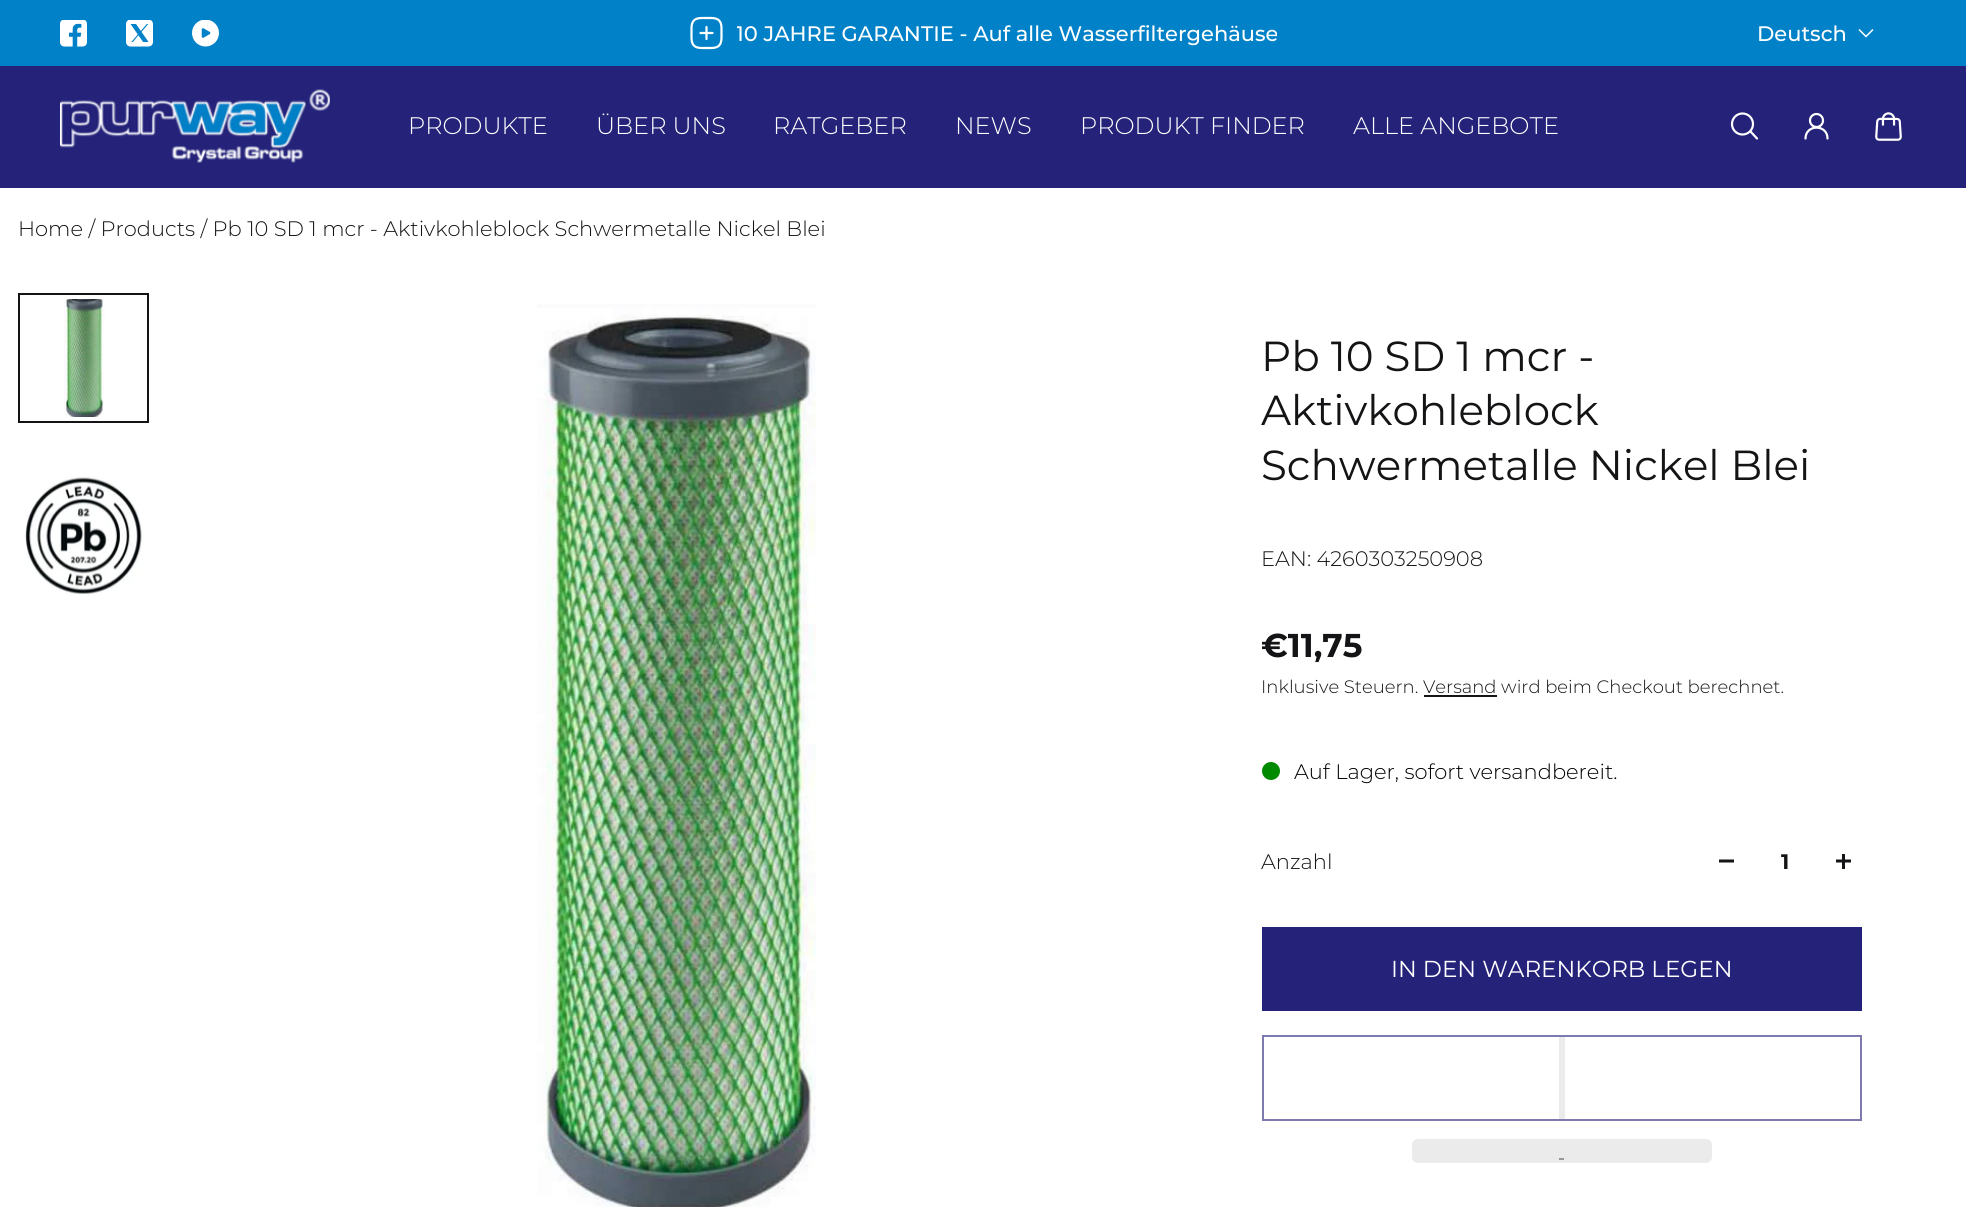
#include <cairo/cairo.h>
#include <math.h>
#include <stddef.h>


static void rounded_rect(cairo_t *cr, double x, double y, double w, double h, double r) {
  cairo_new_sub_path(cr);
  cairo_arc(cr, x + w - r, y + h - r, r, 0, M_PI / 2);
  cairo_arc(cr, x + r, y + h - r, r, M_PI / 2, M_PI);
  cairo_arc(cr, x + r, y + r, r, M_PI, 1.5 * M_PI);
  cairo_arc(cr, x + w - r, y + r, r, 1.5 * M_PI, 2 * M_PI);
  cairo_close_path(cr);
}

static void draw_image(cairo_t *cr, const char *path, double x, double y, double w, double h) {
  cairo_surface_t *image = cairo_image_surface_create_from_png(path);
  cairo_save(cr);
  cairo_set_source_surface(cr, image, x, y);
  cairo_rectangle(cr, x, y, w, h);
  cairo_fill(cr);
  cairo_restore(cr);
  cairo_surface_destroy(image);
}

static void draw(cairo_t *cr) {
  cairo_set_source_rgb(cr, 1, 1, 1);
  cairo_paint(cr);
  cairo_set_source_rgb(cr, 0, 129 / 255.0, 200 / 255.0);
  cairo_rectangle(cr, 0, 0, 1966, 66);
  cairo_fill(cr);
  draw_image(cr, "images/1.png", 60, 20, 27, 27);
  draw_image(cr, "images/2.png", 126, 20, 27, 27);
  draw_image(cr, "images/3.png", 192, 20, 27, 27);
  draw_image(cr, "images/4.png", 690, 16, 33, 34);
  cairo_new_path(cr);
  cairo_move_to(cr, 1873, 29.5);
  cairo_line_to(cr, 1866, 36.5);
  cairo_line_to(cr, 1859, 29.5);
  cairo_set_source_rgb(cr, 1, 1, 1);
  cairo_set_line_width(cr, 1.5);
  cairo_stroke(cr);
  cairo_set_source_rgb(cr, 36 / 255.0, 34 / 255.0, 121 / 255.0);
  cairo_rectangle(cr, 0, 66, 1966, 122);
  cairo_fill(cr);
  draw_image(cr, "images/5.png", 60, 89, 270, 74);
  cairo_arc(cr, 1742.5, 124, 10.5, 0, 2 * M_PI);
  cairo_set_source_rgb(cr, 1, 1, 1);
  cairo_set_line_width(cr, 2.2);
  cairo_stroke(cr);
  cairo_new_path(cr);
  cairo_move_to(cr, 1750.5, 131.5);
  cairo_line_to(cr, 1757, 138.5);
  cairo_set_line_cap(cr, CAIRO_LINE_CAP_ROUND);
  cairo_set_line_join(cr, CAIRO_LINE_JOIN_ROUND);
  cairo_stroke(cr);
  cairo_arc(cr, 1816.5, 120.5, 6.5, 0, 2 * M_PI);
  cairo_set_line_cap(cr, CAIRO_LINE_CAP_BUTT);
  cairo_set_line_join(cr, CAIRO_LINE_JOIN_MITER);
  cairo_stroke(cr);
  cairo_new_path(cr);
  cairo_move_to(cr, 1827.5, 138.5);
  cairo_curve_to(cr, 1827.5, 124, 1805.5, 124, 1805.5, 138.5);
  cairo_set_line_cap(cr, CAIRO_LINE_CAP_ROUND);
  cairo_set_line_join(cr, CAIRO_LINE_JOIN_ROUND);
  cairo_stroke(cr);
  draw_image(cr, "images/6.png", 1875, 112, 27, 29);
  draw_image(cr, "images/7.png", 64, 299, 41, 118);
  cairo_rectangle(cr, 19, 294, 129, 128);
  cairo_set_source_rgb(cr, 20 / 255.0, 20 / 255.0, 22 / 255.0);
  cairo_set_line_width(cr, 2);
  cairo_set_line_cap(cr, CAIRO_LINE_CAP_BUTT);
  cairo_set_line_join(cr, CAIRO_LINE_JOIN_MITER);
  cairo_stroke(cr);
  draw_image(cr, "images/8.png", 25, 476, 118, 118);
  draw_image(cr, "images/9.png", 537, 304, 279, 903);
  cairo_rectangle(cr, 1424, 695, 73, 2);
  cairo_fill(cr);
  cairo_set_source_rgb(cr, 0, 138 / 255.0, 0);
  cairo_arc(cr, 1271, 771, 9, 0, 2 * M_PI);
  cairo_fill(cr);
  cairo_new_path(cr);
  cairo_move_to(cr, 1719, 861);
  cairo_line_to(cr, 1734, 861);
  cairo_set_source_rgb(cr, 20 / 255.0, 20 / 255.0, 22 / 255.0);
  cairo_set_line_width(cr, 3);
  cairo_stroke(cr);
  cairo_new_path(cr);
  cairo_move_to(cr, 1836, 861);
  cairo_line_to(cr, 1851, 861);
  cairo_stroke(cr);
  cairo_rectangle(cr, 1842, 854, 3, 15);
  cairo_fill(cr);
  cairo_set_source_rgb(cr, 36 / 255.0, 34 / 255.0, 121 / 255.0);
  cairo_rectangle(cr, 1262, 927, 600, 84);
  cairo_fill(cr);
  cairo_rectangle(cr, 1263, 1036, 598, 84);
  cairo_set_source_rgb(cr, 124 / 255.0, 122 / 255.0, 175 / 255.0);
  cairo_set_line_width(cr, 2);
  cairo_stroke(cr);
  cairo_set_source_rgb(cr, 235 / 255.0, 235 / 255.0, 235 / 255.0);
  cairo_rectangle(cr, 1559, 1037, 6, 82);
  cairo_fill(cr);
  rounded_rect(cr, 1412, 1139, 300, 24, 6);
  cairo_fill(cr);
  cairo_set_source_rgb(cr, 150 / 255.0, 150 / 255.0, 151 / 255.0);
  cairo_rectangle(cr, 1559, 1158, 5, 2);
  cairo_fill(cr);
  cairo_save(cr);
  cairo_rectangle(cr, 737, 17, 541, 33);
  cairo_clip(cr);
  cairo_select_font_face(cr, "Montserrat Medium", CAIRO_FONT_SLANT_NORMAL, CAIRO_FONT_WEIGHT_NORMAL);
  cairo_set_font_size(cr, 21);
  cairo_set_source_rgb(cr, 1, 1, 1);
  cairo_move_to(cr, 736, 41);
  cairo_show_text(cr, "10 JAHRE GARANTIE - Auf alle Wasserfiltergehäuse");
  cairo_restore(cr);
  cairo_select_font_face(cr, "Montserrat Medium", CAIRO_FONT_SLANT_NORMAL, CAIRO_FONT_WEIGHT_NORMAL);
  cairo_set_font_size(cr, 21);
  cairo_set_source_rgb(cr, 1, 1, 1);
  cairo_move_to(cr, 1757, 41);
  cairo_show_text(cr, "Deutsch");
  cairo_select_font_face(cr, "Montserrat Light", CAIRO_FONT_SLANT_NORMAL, CAIRO_FONT_WEIGHT_NORMAL);
  cairo_set_font_size(cr, 24);
  cairo_move_to(cr, 408, 134);
  cairo_show_text(cr, "PRODUKTE");
  cairo_move_to(cr, 596, 134);
  cairo_show_text(cr, "ÜBER UNS");
  cairo_move_to(cr, 773, 134);
  cairo_show_text(cr, "RATGEBER");
  cairo_move_to(cr, 955, 134);
  cairo_show_text(cr, "NEWS");
  cairo_move_to(cr, 1080, 134);
  cairo_show_text(cr, "PRODUKT FINDER");
  cairo_move_to(cr, 1353, 134);
  cairo_show_text(cr, "ALLE ANGEBOTE");
  cairo_set_font_size(cr, 21);
  cairo_set_source_rgb(cr, 20 / 255.0, 20 / 255.0, 22 / 255.0);
  cairo_move_to(cr, 18, 236);
  cairo_show_text(cr, "Home / Products / Pb 10 SD 1 mcr - Aktivkohleblock Schwermetalle Nickel Blei");
  cairo_select_font_face(cr, "Montserrat", CAIRO_FONT_SLANT_NORMAL, CAIRO_FONT_WEIGHT_NORMAL);
  cairo_set_font_size(cr, 42);
  cairo_move_to(cr, 1261, 371);
  cairo_show_text(cr, "Pb 10 SD 1 mcr -");
  cairo_move_to(cr, 1261, 425);
  cairo_show_text(cr, "Aktivkohleblock");
  cairo_move_to(cr, 1261, 480);
  cairo_show_text(cr, "Schwermetalle Nickel Blei");
  cairo_select_font_face(cr, "Montserrat Light", CAIRO_FONT_SLANT_NORMAL, CAIRO_FONT_WEIGHT_NORMAL);
  cairo_set_font_size(cr, 21);
  cairo_move_to(cr, 1261, 566);
  cairo_show_text(cr, "EAN: 4260303250908");
  cairo_select_font_face(cr, "Montserrat", CAIRO_FONT_SLANT_NORMAL, CAIRO_FONT_WEIGHT_BOLD);
  cairo_set_font_size(cr, 33);
  cairo_move_to(cr, 1261, 657);
  cairo_show_text(cr, "€11,75");
  cairo_select_font_face(cr, "Montserrat Light", CAIRO_FONT_SLANT_NORMAL, CAIRO_FONT_WEIGHT_NORMAL);
  cairo_set_font_size(cr, 18);
  cairo_move_to(cr, 1261, 693);
  cairo_show_text(cr, "Inklusive Steuern. Versand wird beim Checkout berechnet.");
  cairo_set_font_size(cr, 21);
  cairo_set_source_rgb(cr, 0, 0, 0);
  cairo_move_to(cr, 1294, 779);
  cairo_show_text(cr, "Auf Lager, sofort versandbereit.");
  cairo_set_source_rgb(cr, 20 / 255.0, 20 / 255.0, 22 / 255.0);
  cairo_move_to(cr, 1261, 869);
  cairo_show_text(cr, "Anzahl");
  cairo_select_font_face(cr, "Montserrat", CAIRO_FONT_SLANT_NORMAL, CAIRO_FONT_WEIGHT_BOLD);
  cairo_move_to(cr, 1781, 869);
  cairo_show_text(cr, "1");
  cairo_select_font_face(cr, "Montserrat", CAIRO_FONT_SLANT_NORMAL, CAIRO_FONT_WEIGHT_NORMAL);
  cairo_set_font_size(cr, 23.1);
  cairo_set_source_rgb(cr, 1, 1, 1);
  cairo_move_to(cr, 1391, 977);
  cairo_show_text(cr, "IN DEN WARENKORB LEGEN");
}

int main(void) {
  cairo_surface_t *surface = cairo_image_surface_create(CAIRO_FORMAT_RGB24, 1966, 1207);
  cairo_t *cr = cairo_create(surface);
  cairo_font_options_t *options = cairo_font_options_create();
  cairo_font_options_set_hint_metrics(options, CAIRO_HINT_METRICS_OFF);
  cairo_font_options_set_hint_style(options, CAIRO_HINT_STYLE_NONE);
  cairo_set_font_options(cr, options);
  cairo_set_miter_limit(cr, 4);
  draw(cr);
  cairo_surface_write_to_png(surface, "out.png");
  cairo_font_options_destroy(options);
  cairo_destroy(cr);
  cairo_surface_destroy(surface);
  return 0;
}
